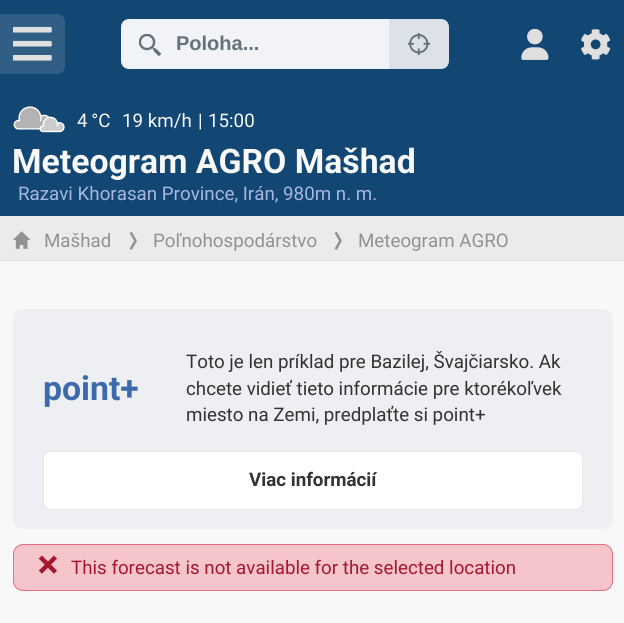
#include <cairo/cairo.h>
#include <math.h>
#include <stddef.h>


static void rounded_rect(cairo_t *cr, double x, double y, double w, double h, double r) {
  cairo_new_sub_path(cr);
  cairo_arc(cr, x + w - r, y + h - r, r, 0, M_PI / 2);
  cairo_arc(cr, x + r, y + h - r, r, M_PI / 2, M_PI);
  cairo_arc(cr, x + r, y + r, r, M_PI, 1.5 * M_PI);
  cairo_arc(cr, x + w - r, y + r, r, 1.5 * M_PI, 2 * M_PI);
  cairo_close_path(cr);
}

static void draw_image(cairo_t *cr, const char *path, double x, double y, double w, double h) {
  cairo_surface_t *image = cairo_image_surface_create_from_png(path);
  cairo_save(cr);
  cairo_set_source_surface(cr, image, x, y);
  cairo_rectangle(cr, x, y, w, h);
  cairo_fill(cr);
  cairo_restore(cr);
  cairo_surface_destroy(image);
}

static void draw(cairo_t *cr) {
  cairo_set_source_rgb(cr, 248 / 255.0, 248 / 255.0, 248 / 255.0);
  cairo_paint(cr);
  cairo_set_source_rgb(cr, 18 / 255.0, 70 / 255.0, 115 / 255.0);
  cairo_rectangle(cr, 0, 0, 624, 216);
  cairo_fill(cr);
  cairo_set_source_rgb(cr, 49 / 255.0, 94 / 255.0, 133 / 255.0);
  cairo_new_path(cr);
  cairo_move_to(cr, 0, 14);
  cairo_line_to(cr, 57, 14);
  cairo_curve_to(cr, 61.5, 14, 65, 17.5, 65, 22);
  cairo_line_to(cr, 65, 66);
  cairo_curve_to(cr, 65, 70.5, 61.5, 74, 57, 74);
  cairo_line_to(cr, 0, 74);
  cairo_close_path(cr);
  cairo_fill(cr);
  draw_image(cr, "images/1.png", 13, 26, 39, 35);
  cairo_set_source_rgb(cr, 241 / 255.0, 243 / 255.0, 246 / 255.0);
  cairo_new_path(cr);
  cairo_move_to(cr, 129, 19);
  cairo_line_to(cr, 389, 19);
  cairo_line_to(cr, 389, 69);
  cairo_line_to(cr, 129, 69);
  cairo_curve_to(cr, 124.5, 69, 121, 65.5, 121, 61);
  cairo_line_to(cr, 121, 27);
  cairo_curve_to(cr, 121, 22.5, 124.5, 19, 129, 19);
  cairo_close_path(cr);
  cairo_fill(cr);
  draw_image(cr, "images/2.png", 139, 34, 22, 22);
  cairo_set_source_rgb(cr, 221 / 255.0, 226 / 255.0, 234 / 255.0);
  cairo_new_path(cr);
  cairo_move_to(cr, 389, 19);
  cairo_line_to(cr, 441, 19);
  cairo_curve_to(cr, 445.5, 19, 449, 22.5, 449, 27);
  cairo_line_to(cr, 449, 61);
  cairo_curve_to(cr, 449, 65.5, 445.5, 69, 441, 69);
  cairo_line_to(cr, 389, 69);
  cairo_close_path(cr);
  cairo_fill(cr);
  draw_image(cr, "images/3.png", 408, 33, 22, 22);
  draw_image(cr, "images/4.png", 521, 29, 28, 31);
  draw_image(cr, "images/5.png", 581, 29, 30, 31);
  draw_image(cr, "images/6.png", 13, 106, 52, 27);
  cairo_set_source_rgb(cr, 235 / 255.0, 235 / 255.0, 235 / 255.0);
  cairo_rectangle(cr, 0, 216, 624, 44);
  cairo_fill(cr);
  cairo_set_source_rgb(cr, 223 / 255.0, 223 / 255.0, 223 / 255.0);
  cairo_rectangle(cr, 0, 260, 624, 1);
  cairo_fill(cr);
  draw_image(cr, "images/7.png", 13, 231, 18, 18);
  draw_image(cr, "images/8.png", 129, 231, 8, 19);
  draw_image(cr, "images/8.png", 334, 231, 8, 19);
  cairo_set_source_rgb(cr, 237 / 255.0, 239 / 255.0, 242 / 255.0);
  rounded_rect(cr, 13, 309, 600, 220, 10);
  cairo_fill(cr);
  cairo_set_source_rgb(cr, 1, 1, 1);
  rounded_rect(cr, 43.5, 451.5, 539, 58, 7.5);
  cairo_fill_preserve(cr);
  cairo_set_source_rgb(cr, 231 / 255.0, 231 / 255.0, 233 / 255.0);
  cairo_set_line_width(cr, 1);
  cairo_stroke(cr);
  cairo_set_source_rgb(cr, 246 / 255.0, 197 / 255.0, 204 / 255.0);
  rounded_rect(cr, 13.5, 544.5, 599, 46, 9.5);
  cairo_fill_preserve(cr);
  cairo_set_source_rgb(cr, 233 / 255.0, 108 / 255.0, 127 / 255.0);
  cairo_stroke(cr);
  draw_image(cr, "images/9.png", 38, 555, 19, 19);
  cairo_select_font_face(cr, "Liberation Sans", CAIRO_FONT_SLANT_NORMAL, CAIRO_FONT_WEIGHT_BOLD);
  cairo_set_font_size(cr, 20);
  cairo_set_source_rgb(cr, 101 / 255.0, 114 / 255.0, 124 / 255.0);
  cairo_move_to(cr, 176, 50);
  cairo_show_text(cr, "Poloha...");
  cairo_select_font_face(cr, "Roboto", CAIRO_FONT_SLANT_NORMAL, CAIRO_FONT_WEIGHT_NORMAL);
  cairo_set_font_size(cr, 18.75);
  cairo_set_source_rgb(cr, 248 / 255.0, 248 / 255.0, 248 / 255.0);
  cairo_move_to(cr, 77, 127);
  cairo_show_text(cr, "4 °C");
  cairo_move_to(cr, 122, 127);
  cairo_show_text(cr, "19 km/h");
  cairo_move_to(cr, 198, 127);
  cairo_show_text(cr, "|");
  cairo_move_to(cr, 208, 127);
  cairo_show_text(cr, "15:00");
  cairo_select_font_face(cr, "Roboto", CAIRO_FONT_SLANT_NORMAL, CAIRO_FONT_WEIGHT_BOLD);
  cairo_set_font_size(cr, 33.75);
  cairo_move_to(cr, 12, 173);
  cairo_show_text(cr, "Meteogram AGRO Mašhad");
  cairo_select_font_face(cr, "Roboto", CAIRO_FONT_SLANT_NORMAL, CAIRO_FONT_WEIGHT_NORMAL);
  cairo_set_font_size(cr, 18.75);
  cairo_set_source_rgb(cr, 168 / 255.0, 183 / 255.0, 221 / 255.0);
  cairo_move_to(cr, 18, 200);
  cairo_show_text(cr, "Razavi Khorasan Province, Irán, 980m n. m.");
  cairo_set_source_rgb(cr, 146 / 255.0, 146 / 255.0, 146 / 255.0);
  cairo_move_to(cr, 44, 247);
  cairo_show_text(cr, "Mašhad");
  cairo_move_to(cr, 153, 247);
  cairo_show_text(cr, "Poľnohospodárstvo");
  cairo_move_to(cr, 358, 247);
  cairo_show_text(cr, "Meteogram AGRO");
  cairo_select_font_face(cr, "Roboto", CAIRO_FONT_SLANT_NORMAL, CAIRO_FONT_WEIGHT_BOLD);
  cairo_set_font_size(cr, 33.75);
  cairo_set_source_rgb(cr, 59 / 255.0, 106 / 255.0, 173 / 255.0);
  cairo_move_to(cr, 43, 400);
  cairo_show_text(cr, "point+");
  cairo_select_font_face(cr, "Roboto", CAIRO_FONT_SLANT_NORMAL, CAIRO_FONT_WEIGHT_NORMAL);
  cairo_set_font_size(cr, 18.75);
  cairo_set_source_rgb(cr, 51 / 255.0, 51 / 255.0, 51 / 255.0);
  cairo_move_to(cr, 186, 368);
  cairo_show_text(cr, "Toto je len príklad pre Bazilej, Švajčiarsko. Ak");
  cairo_move_to(cr, 186, 395);
  cairo_show_text(cr, "chcete vidieť tieto informácie pre ktorékoľvek");
  cairo_move_to(cr, 186, 421);
  cairo_show_text(cr, "miesto na Zemi, predplaťte si point+");
  cairo_select_font_face(cr, "Roboto", CAIRO_FONT_SLANT_NORMAL, CAIRO_FONT_WEIGHT_BOLD);
  cairo_move_to(cr, 249, 486);
  cairo_show_text(cr, "Viac informácií");
  cairo_select_font_face(cr, "Roboto", CAIRO_FONT_SLANT_NORMAL, CAIRO_FONT_WEIGHT_NORMAL);
  cairo_set_source_rgb(cr, 164 / 255.0, 24 / 255.0, 46 / 255.0);
  cairo_move_to(cr, 71, 574);
  cairo_show_text(cr, "This forecast is not available for the selected location");
}

int main(void) {
  cairo_surface_t *surface = cairo_image_surface_create(CAIRO_FORMAT_RGB24, 624, 623);
  cairo_t *cr = cairo_create(surface);
  cairo_font_options_t *options = cairo_font_options_create();
  cairo_font_options_set_hint_metrics(options, CAIRO_HINT_METRICS_OFF);
  cairo_font_options_set_hint_style(options, CAIRO_HINT_STYLE_NONE);
  cairo_set_font_options(cr, options);
  cairo_set_miter_limit(cr, 4);
  draw(cr);
  cairo_surface_write_to_png(surface, "out.png");
  cairo_font_options_destroy(options);
  cairo_destroy(cr);
  cairo_surface_destroy(surface);
  return 0;
}
